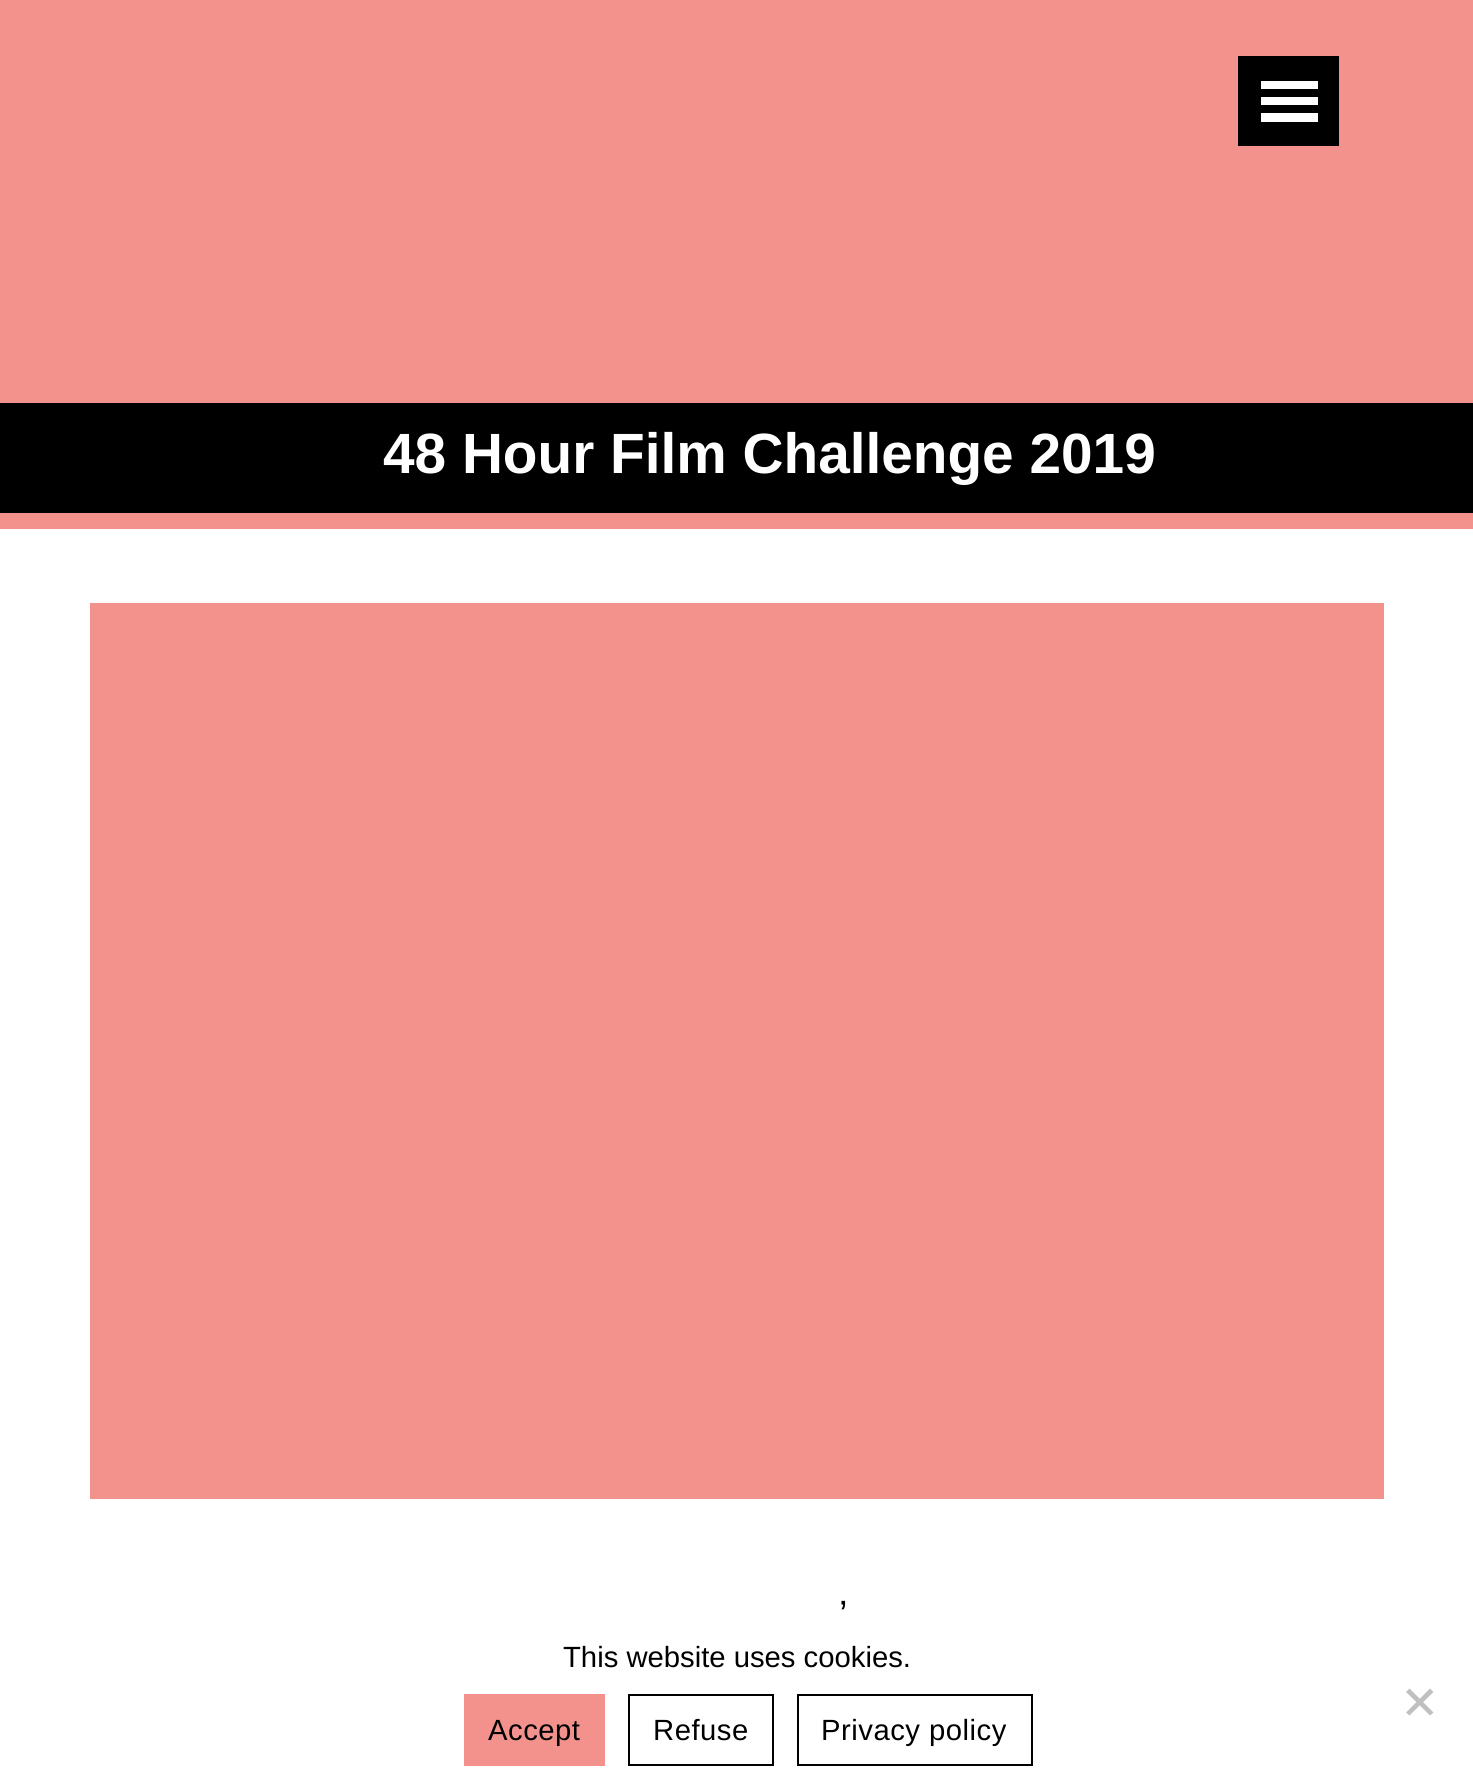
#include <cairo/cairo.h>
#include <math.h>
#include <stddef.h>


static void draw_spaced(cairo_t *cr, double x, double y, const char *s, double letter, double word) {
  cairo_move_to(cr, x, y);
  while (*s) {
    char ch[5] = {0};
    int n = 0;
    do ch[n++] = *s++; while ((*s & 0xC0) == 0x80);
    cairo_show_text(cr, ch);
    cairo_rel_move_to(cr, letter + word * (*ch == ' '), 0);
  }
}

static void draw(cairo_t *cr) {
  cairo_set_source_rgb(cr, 1, 1, 1);
  cairo_paint(cr);
  cairo_set_source_rgb(cr, 243 / 255.0, 146 / 255.0, 140 / 255.0);
  cairo_rectangle(cr, 0, 0, 1473, 529);
  cairo_fill(cr);
  cairo_set_source_rgb(cr, 0, 0, 0);
  cairo_rectangle(cr, 1238, 56, 101, 90);
  cairo_fill(cr);
  cairo_set_source_rgb(cr, 1, 1, 1);
  cairo_new_path(cr);
  cairo_move_to(cr, 1261, 122);
  cairo_line_to(cr, 1318, 122);
  cairo_line_to(cr, 1318, 113);
  cairo_line_to(cr, 1261, 113);
  cairo_close_path(cr);
  cairo_move_to(cr, 1261, 81);
  cairo_line_to(cr, 1261, 89);
  cairo_line_to(cr, 1318, 89);
  cairo_line_to(cr, 1318, 81);
  cairo_close_path(cr);
  cairo_move_to(cr, 1261, 105);
  cairo_line_to(cr, 1318, 105);
  cairo_line_to(cr, 1318, 97);
  cairo_line_to(cr, 1261, 97);
  cairo_close_path(cr);
  cairo_fill(cr);
  cairo_set_source_rgb(cr, 0, 0, 0);
  cairo_rectangle(cr, 0, 403, 1473, 110);
  cairo_fill(cr);
  cairo_set_source_rgb(cr, 243 / 255.0, 146 / 255.0, 140 / 255.0);
  cairo_rectangle(cr, 90, 603, 1294, 896);
  cairo_fill(cr);
  cairo_set_source_rgb(cr, 192 / 255.0, 192 / 255.0, 192 / 255.0);
  cairo_new_path(cr);
  cairo_move_to(cr, 1430, 1688.5);
  cairo_line_to(cr, 1433.5, 1692);
  cairo_line_to(cr, 1409.5, 1715.5);
  cairo_line_to(cr, 1406, 1712.5);
  cairo_close_path(cr);
  cairo_fill(cr);
  cairo_new_path(cr);
  cairo_move_to(cr, 1406, 1692);
  cairo_line_to(cr, 1409.5, 1688.5);
  cairo_line_to(cr, 1433.5, 1712.5);
  cairo_line_to(cr, 1430, 1715.5);
  cairo_close_path(cr);
  cairo_fill(cr);
  cairo_set_source_rgb(cr, 243 / 255.0, 146 / 255.0, 140 / 255.0);
  cairo_rectangle(cr, 464, 1694, 141, 72);
  cairo_fill(cr);
  cairo_rectangle(cr, 629, 1695, 144, 70);
  cairo_set_source_rgb(cr, 0, 0, 0);
  cairo_stroke(cr);
  cairo_rectangle(cr, 798, 1695, 234, 70);
  cairo_stroke(cr);
  cairo_select_font_face(cr, "Liberation Sans", CAIRO_FONT_SLANT_NORMAL, CAIRO_FONT_WEIGHT_BOLD);
  cairo_set_font_size(cr, 56.75);
  cairo_set_source_rgb(cr, 1, 1, 1);
  cairo_move_to(cr, 383, 473);
  cairo_show_text(cr, "48 Hour Film Challenge 2019");
  cairo_select_font_face(cr, "Liberation Sans", CAIRO_FONT_SLANT_NORMAL, CAIRO_FONT_WEIGHT_NORMAL);
  cairo_set_font_size(cr, 38);
  cairo_set_source_rgb(cr, 0, 0, 0);
  cairo_move_to(cr, 839, 1627);
  cairo_show_text(cr, "’");
  cairo_set_font_size(cr, 29.25);
  cairo_move_to(cr, 563, 1667);
  cairo_show_text(cr, "This website uses cookies.");
  draw_spaced(cr, 488, 1740, "Accept", 0.5, 0);
  draw_spaced(cr, 653, 1740, "Refuse", 0.5, 0);
  draw_spaced(cr, 821, 1740, "Privacy policy", 0.5, 0);
}

int main(void) {
  cairo_surface_t *surface = cairo_image_surface_create(CAIRO_FORMAT_RGB24, 1473, 1784);
  cairo_t *cr = cairo_create(surface);
  cairo_font_options_t *options = cairo_font_options_create();
  cairo_font_options_set_hint_metrics(options, CAIRO_HINT_METRICS_OFF);
  cairo_font_options_set_hint_style(options, CAIRO_HINT_STYLE_NONE);
  cairo_set_font_options(cr, options);
  cairo_set_miter_limit(cr, 4);
  draw(cr);
  cairo_surface_write_to_png(surface, "out.png");
  cairo_font_options_destroy(options);
  cairo_destroy(cr);
  cairo_surface_destroy(surface);
  return 0;
}
